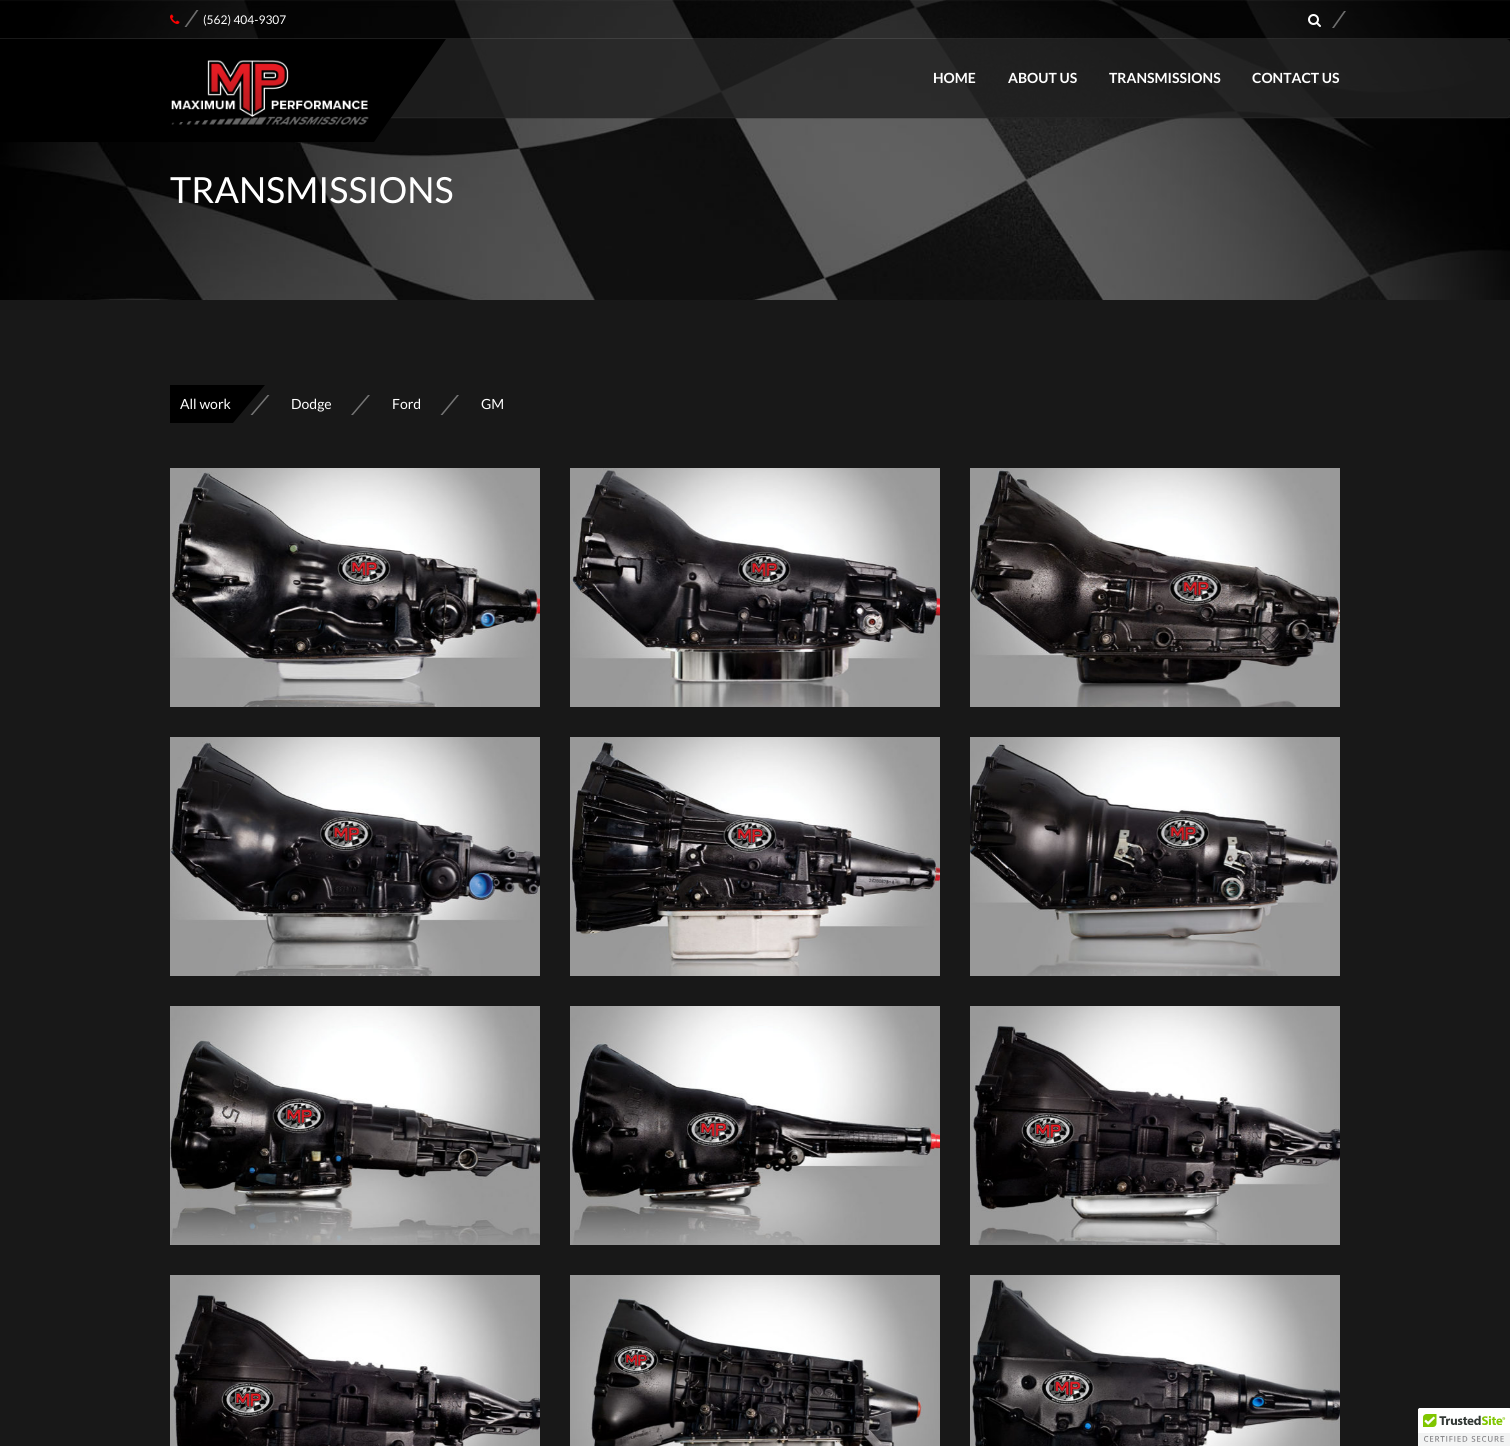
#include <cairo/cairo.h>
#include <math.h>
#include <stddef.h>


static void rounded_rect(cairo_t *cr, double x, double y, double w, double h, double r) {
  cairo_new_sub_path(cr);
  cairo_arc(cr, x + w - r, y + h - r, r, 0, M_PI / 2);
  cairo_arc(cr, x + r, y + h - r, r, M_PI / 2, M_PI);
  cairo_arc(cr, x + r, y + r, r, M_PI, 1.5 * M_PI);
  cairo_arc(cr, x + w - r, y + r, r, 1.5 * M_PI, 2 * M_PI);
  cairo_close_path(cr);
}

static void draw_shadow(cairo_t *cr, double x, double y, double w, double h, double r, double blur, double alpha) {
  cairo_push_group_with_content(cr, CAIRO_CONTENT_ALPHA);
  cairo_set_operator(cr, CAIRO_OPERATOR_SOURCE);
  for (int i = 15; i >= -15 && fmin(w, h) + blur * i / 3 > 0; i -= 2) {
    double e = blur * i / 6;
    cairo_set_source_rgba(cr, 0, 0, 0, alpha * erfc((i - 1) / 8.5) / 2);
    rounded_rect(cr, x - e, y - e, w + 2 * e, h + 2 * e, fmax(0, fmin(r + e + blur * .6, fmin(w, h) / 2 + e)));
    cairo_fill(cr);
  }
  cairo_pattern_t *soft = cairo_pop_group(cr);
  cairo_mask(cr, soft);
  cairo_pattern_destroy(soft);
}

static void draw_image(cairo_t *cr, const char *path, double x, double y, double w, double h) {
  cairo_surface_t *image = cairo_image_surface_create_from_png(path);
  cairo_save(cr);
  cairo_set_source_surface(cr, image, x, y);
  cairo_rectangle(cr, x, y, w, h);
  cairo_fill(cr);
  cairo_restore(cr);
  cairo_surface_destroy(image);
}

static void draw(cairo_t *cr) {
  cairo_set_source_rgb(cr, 1, 1, 1);
  cairo_paint(cr);
  draw_image(cr, "images/4.png", 0, 0, 1510, 300);
  cairo_set_source_rgba(cr, 0, 0, 0, 0.3);
  cairo_rectangle(cr, 0, 0, 1510, 118);
  cairo_fill(cr);
  cairo_set_source_rgba(cr, 1, 1, 1, 0.1);
  cairo_rectangle(cr, 390, 117, 1120, 1);
  cairo_fill(cr);
  cairo_set_source_rgba(cr, 0, 0, 0, 0.28);
  cairo_rectangle(cr, 0, 0, 1510, 39);
  cairo_fill(cr);
  cairo_set_source_rgba(cr, 1, 1, 1, 0.1);
  cairo_rectangle(cr, 0, 38, 1510, 1);
  cairo_fill(cr);
  draw_image(cr, "images/1.png", 170, 14, 10, 10);
  cairo_set_source_rgb(cr, 110 / 255.0, 110 / 255.0, 110 / 255.0);
  cairo_new_path(cr);
  cairo_move_to(cr, 196.5, 10);
  cairo_line_to(cr, 198.5, 10);
  cairo_line_to(cr, 186.5, 27);
  cairo_line_to(cr, 184.5, 27);
  cairo_close_path(cr);
  cairo_fill(cr);
  draw_image(cr, "images/2.png", 1308, 14, 13, 13);
  cairo_set_source_rgba(cr, 1, 1, 1, 0.4);
  cairo_new_path(cr);
  cairo_move_to(cr, 1344, 11);
  cairo_line_to(cr, 1346, 11);
  cairo_line_to(cr, 1334, 28);
  cairo_line_to(cr, 1332, 28);
  cairo_close_path(cr);
  cairo_fill(cr);
  cairo_save(cr);
  cairo_set_fill_rule(cr, CAIRO_FILL_RULE_EVEN_ODD);
  cairo_new_path(cr);
  cairo_move_to(cr, 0, 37);
  cairo_line_to(cr, 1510, 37);
  cairo_line_to(cr, 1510, 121);
  cairo_line_to(cr, 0, 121);
  cairo_close_path(cr);
  cairo_move_to(cr, 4, 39);
  cairo_line_to(cr, 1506, 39);
  cairo_curve_to(cr, 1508, 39, 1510, 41, 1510, 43);
  cairo_line_to(cr, 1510, 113);
  cairo_curve_to(cr, 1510, 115, 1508, 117, 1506, 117);
  cairo_line_to(cr, 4, 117);
  cairo_curve_to(cr, 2, 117, 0, 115, 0, 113);
  cairo_line_to(cr, 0, 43);
  cairo_curve_to(cr, 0, 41, 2, 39, 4, 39);
  cairo_close_path(cr);
  cairo_clip(cr);
  cairo_set_source_rgb(cr, 35 / 255.0, 35 / 255.0, 35 / 255.0);
  draw_shadow(cr, 1, 40, 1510, 78, 4, 0.5, 1);
  cairo_restore(cr);
  cairo_set_source_rgba(cr, 35 / 255.0, 35 / 255.0, 35 / 255.0, 0.75);
  rounded_rect(cr, 0, 39, 1510, 78, 4);
  cairo_fill(cr);
  cairo_set_source_rgb(cr, 0, 0, 0);
  cairo_new_path(cr);
  cairo_move_to(cr, -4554, 39);
  cairo_line_to(cr, 446, 39);
  cairo_line_to(cr, 374, 142);
  cairo_line_to(cr, -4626, 142);
  cairo_close_path(cr);
  cairo_fill(cr);
  draw_image(cr, "images/3.png", 171, 60, 198, 65);
  cairo_set_source_rgb(cr, 24 / 255.0, 24 / 255.0, 24 / 255.0);
  cairo_rectangle(cr, 0, 300, 1510, 1146);
  cairo_fill(cr);
  cairo_set_source_rgb(cr, 0, 0, 0);
  cairo_rectangle(cr, 170, 385, 95, 38);
  cairo_fill(cr);
  cairo_save(cr);
  cairo_rectangle(cr, 170, 385, 101, 38);
  cairo_clip(cr);
  cairo_set_source_rgb(cr, 24 / 255.0, 24 / 255.0, 24 / 255.0);
  cairo_new_path(cr);
  cairo_move_to(cr, 265, 385);
  cairo_line_to(cr, 305, 385);
  cairo_line_to(cr, 273, 423);
  cairo_line_to(cr, 233, 423);
  cairo_close_path(cr);
  cairo_fill(cr);
  cairo_restore(cr);
  cairo_set_source_rgb(cr, 116 / 255.0, 116 / 255.0, 116 / 255.0);
  cairo_new_path(cr);
  cairo_move_to(cr, 267.5, 395);
  cairo_line_to(cr, 269.5, 395);
  cairo_line_to(cr, 252.5, 415);
  cairo_line_to(cr, 250.5, 415);
  cairo_close_path(cr);
  cairo_fill(cr);
  cairo_new_path(cr);
  cairo_move_to(cr, 368, 395);
  cairo_line_to(cr, 370, 395);
  cairo_line_to(cr, 353, 415);
  cairo_line_to(cr, 351, 415);
  cairo_close_path(cr);
  cairo_fill(cr);
  cairo_new_path(cr);
  cairo_move_to(cr, 457, 395);
  cairo_line_to(cr, 459, 395);
  cairo_line_to(cr, 442.5, 415);
  cairo_line_to(cr, 440.5, 415);
  cairo_close_path(cr);
  cairo_fill(cr);
  draw_image(cr, "images/5.png", 170, 468, 370, 239);
  draw_image(cr, "images/6.png", 570, 468, 370, 239);
  draw_image(cr, "images/7.png", 970, 468, 370, 239);
  draw_image(cr, "images/8.png", 170, 737, 370, 239);
  draw_image(cr, "images/9.png", 570, 737, 370, 239);
  draw_image(cr, "images/10.png", 970, 737, 370, 239);
  draw_image(cr, "images/11.png", 170, 1006, 370, 239);
  draw_image(cr, "images/12.png", 570, 1006, 370, 239);
  draw_image(cr, "images/13.png", 970, 1006, 370, 239);
  draw_image(cr, "images/14.png", 170, 1275, 370, 171);
  draw_image(cr, "images/15.png", 570, 1275, 370, 171);
  draw_image(cr, "images/16.png", 970, 1275, 370, 171);
  cairo_set_source_rgb(cr, 1, 1, 1);
  cairo_new_path(cr);
  cairo_move_to(cr, 1420, 1408);
  cairo_line_to(cr, 1510, 1408);
  cairo_line_to(cr, 1510, 1446);
  cairo_line_to(cr, 1418, 1446);
  cairo_line_to(cr, 1418, 1410);
  cairo_curve_to(cr, 1418, 1409, 1419, 1408, 1420, 1408);
  cairo_close_path(cr);
  cairo_fill(cr);
  draw_image(cr, "images/17.png", 1418, 1408, 92, 38);
  cairo_select_font_face(cr, "Lato", CAIRO_FONT_SLANT_NORMAL, CAIRO_FONT_WEIGHT_NORMAL);
  cairo_set_font_size(cr, 12);
  cairo_move_to(cr, 203, 24);
  cairo_show_text(cr, "(562) 404-9307");
  cairo_select_font_face(cr, "Lato", CAIRO_FONT_SLANT_NORMAL, CAIRO_FONT_WEIGHT_BOLD);
  cairo_set_font_size(cr, 14);
  cairo_move_to(cr, 933, 83);
  cairo_show_text(cr, "HOME");
  cairo_move_to(cr, 1008, 83);
  cairo_show_text(cr, "ABOUT US");
  cairo_move_to(cr, 1109, 83);
  cairo_show_text(cr, "TRANSMISSIONS");
  cairo_move_to(cr, 1252, 83);
  cairo_show_text(cr, "CONTACT US");
  cairo_select_font_face(cr, "Lato", CAIRO_FONT_SLANT_NORMAL, CAIRO_FONT_WEIGHT_NORMAL);
  cairo_set_font_size(cr, 36);
  cairo_move_to(cr, 170, 203);
  cairo_show_text(cr, "TRANSMISSIONS");
  cairo_set_font_size(cr, 14);
  cairo_move_to(cr, 180, 409);
  cairo_show_text(cr, "All work");
  cairo_move_to(cr, 291, 409);
  cairo_show_text(cr, "Dodge");
  cairo_move_to(cr, 392, 409);
  cairo_show_text(cr, "Ford");
  cairo_move_to(cr, 481, 409);
  cairo_show_text(cr, "GM");
}

int main(void) {
  cairo_surface_t *surface = cairo_image_surface_create(CAIRO_FORMAT_RGB24, 1510, 1446);
  cairo_t *cr = cairo_create(surface);
  cairo_font_options_t *options = cairo_font_options_create();
  cairo_font_options_set_hint_metrics(options, CAIRO_HINT_METRICS_OFF);
  cairo_font_options_set_hint_style(options, CAIRO_HINT_STYLE_NONE);
  cairo_set_font_options(cr, options);
  cairo_set_miter_limit(cr, 4);
  draw(cr);
  cairo_surface_write_to_png(surface, "out.png");
  cairo_font_options_destroy(options);
  cairo_destroy(cr);
  cairo_surface_destroy(surface);
  return 0;
}
